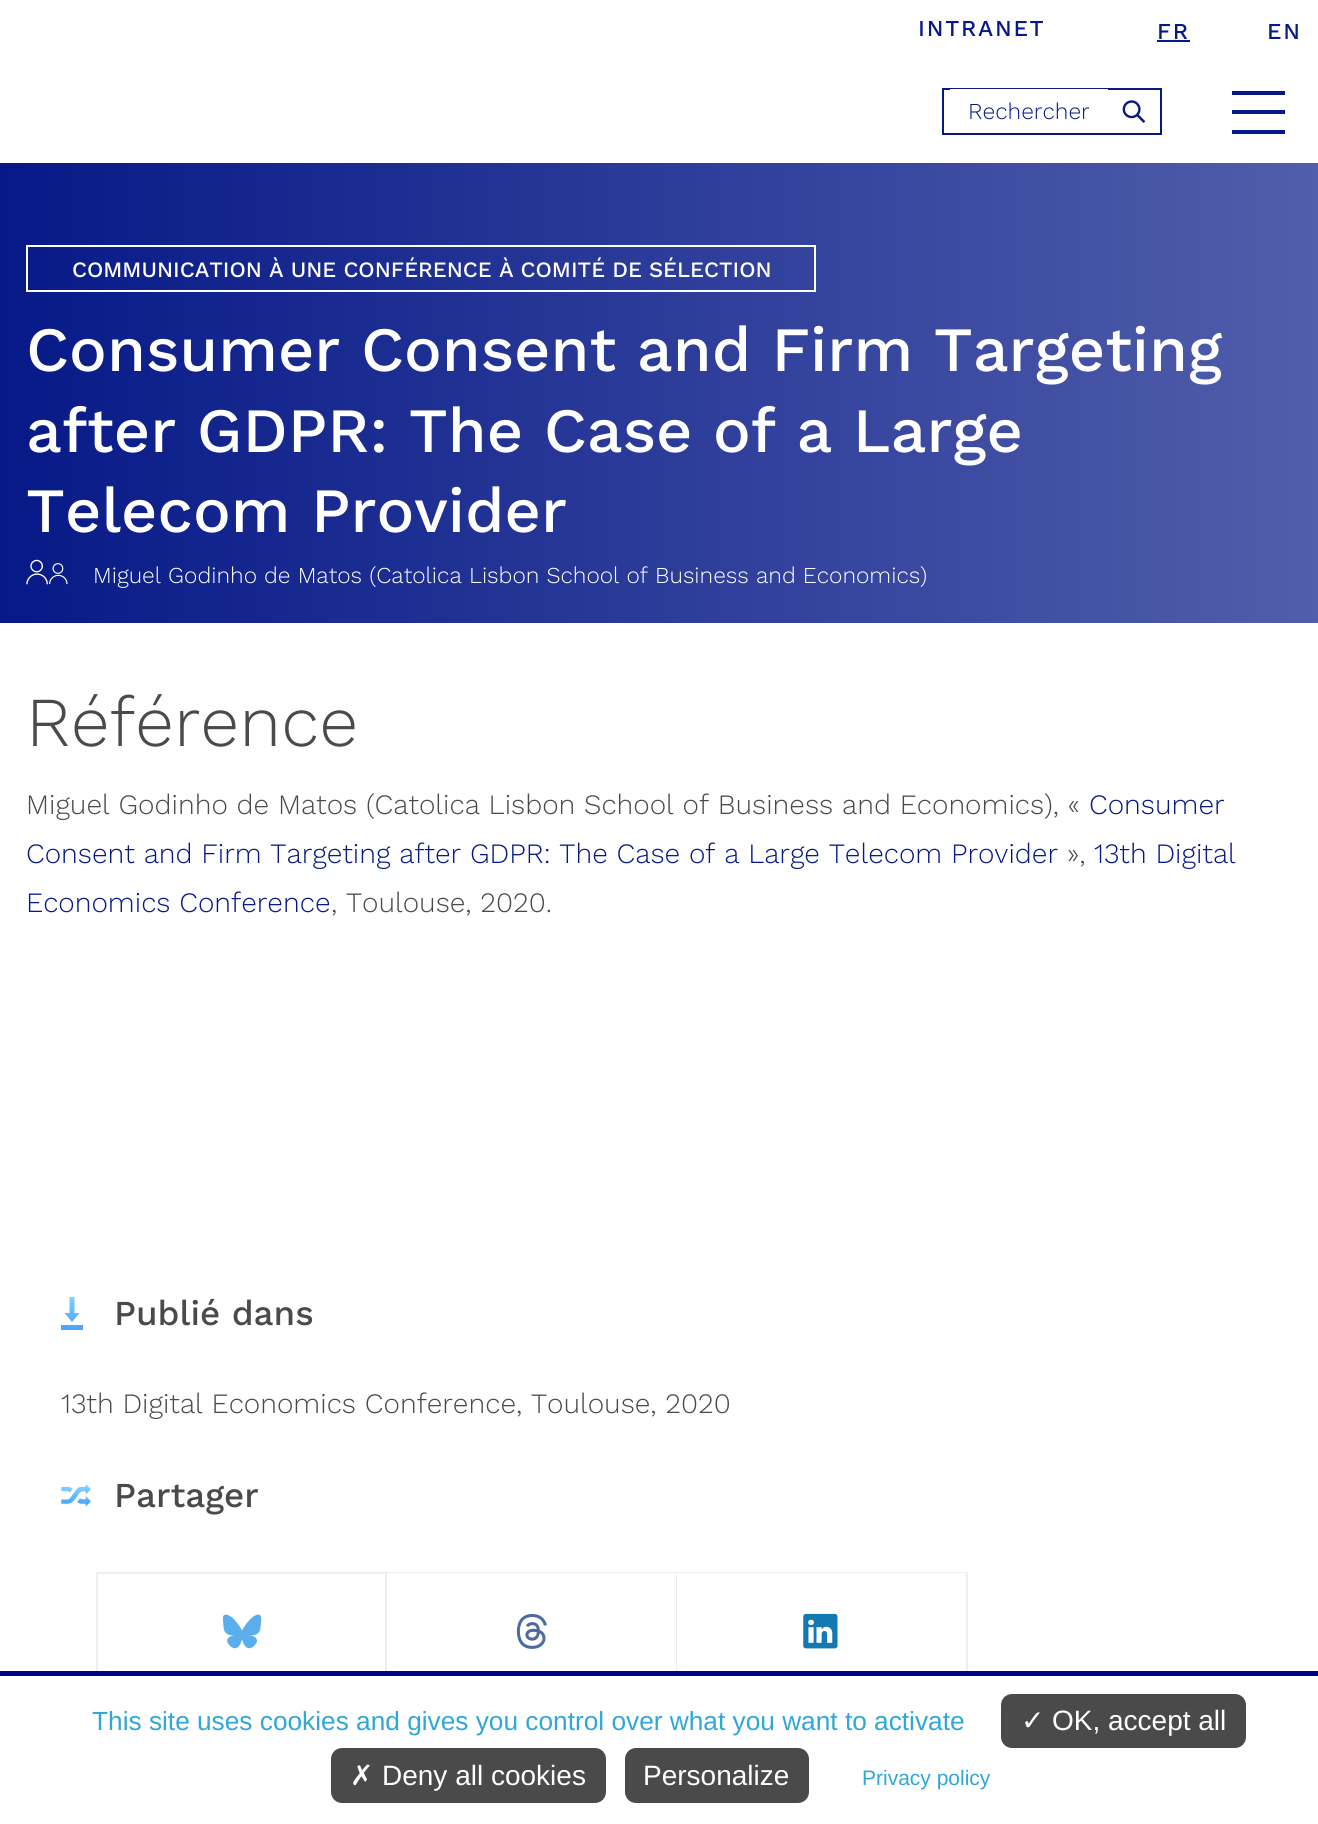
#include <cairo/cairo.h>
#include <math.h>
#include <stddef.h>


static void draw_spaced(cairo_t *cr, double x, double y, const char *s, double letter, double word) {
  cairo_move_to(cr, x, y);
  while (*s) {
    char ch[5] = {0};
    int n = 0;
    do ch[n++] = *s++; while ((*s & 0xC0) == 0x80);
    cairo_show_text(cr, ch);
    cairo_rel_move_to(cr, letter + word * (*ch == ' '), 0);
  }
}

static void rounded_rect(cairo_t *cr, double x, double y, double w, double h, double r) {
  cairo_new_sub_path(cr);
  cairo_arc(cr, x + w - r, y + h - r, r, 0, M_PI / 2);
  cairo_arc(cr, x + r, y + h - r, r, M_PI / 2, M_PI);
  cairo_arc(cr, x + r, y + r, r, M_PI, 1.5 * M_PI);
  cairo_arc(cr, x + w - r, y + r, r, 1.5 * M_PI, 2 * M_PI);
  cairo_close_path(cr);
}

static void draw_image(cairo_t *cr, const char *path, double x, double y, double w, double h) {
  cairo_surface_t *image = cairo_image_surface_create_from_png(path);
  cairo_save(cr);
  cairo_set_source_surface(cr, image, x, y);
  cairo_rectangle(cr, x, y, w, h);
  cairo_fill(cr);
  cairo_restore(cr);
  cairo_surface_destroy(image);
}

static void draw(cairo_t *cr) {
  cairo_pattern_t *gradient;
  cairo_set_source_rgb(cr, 1, 1, 1);
  cairo_paint(cr);
  cairo_set_source_rgb(cr, 6 / 255.0, 25 / 255.0, 135 / 255.0);
  cairo_rectangle(cr, 1157, 40, 33, 2);
  cairo_fill(cr);
  cairo_rectangle(cr, 943, 89, 218, 45);
  cairo_stroke(cr);
  cairo_set_source_rgb(cr, 1, 1, 1);
  cairo_rectangle(cr, 950, 89, 158, 1);
  cairo_fill(cr);
  draw_image(cr, "images/1.png", 1122, 100, 24, 23);
  cairo_set_source_rgb(cr, 6 / 255.0, 25 / 255.0, 135 / 255.0);
  cairo_rectangle(cr, 1232, 91, 53, 4);
  cairo_fill(cr);
  cairo_rectangle(cr, 1232, 110, 53, 4);
  cairo_fill(cr);
  cairo_rectangle(cr, 1232, 130, 53, 4);
  cairo_fill(cr);
  gradient = cairo_pattern_create_linear(0, 362, 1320, 362);
  cairo_pattern_add_color_stop_rgba(gradient, 0, 6 / 255.0, 25 / 255.0, 135 / 255.0, 1);
  cairo_pattern_add_color_stop_rgba(gradient, 1, 81 / 255.0, 94 / 255.0, 171 / 255.0, 1);
  cairo_set_source(cr, gradient);
  cairo_pattern_destroy(gradient);
  cairo_rectangle(cr, 0, 163, 1318, 460);
  cairo_fill(cr);
  cairo_rectangle(cr, 27, 246, 788, 45);
  cairo_set_source_rgb(cr, 1, 1, 1);
  cairo_stroke(cr);
  draw_image(cr, "images/2.png", 26, 559, 22, 26);
  draw_image(cr, "images/3.png", 49, 563, 19, 22);
  gradient = cairo_pattern_create_linear(72, 1297, 72, 1330);
  cairo_pattern_add_color_stop_rgba(gradient, 0, 125 / 255.0, 207 / 255.0, 1, 1);
  cairo_pattern_add_color_stop_rgba(gradient, 1, 71 / 255.0, 161 / 255.0, 1, 1);
  cairo_set_source(cr, gradient);
  cairo_pattern_destroy(gradient);
  cairo_new_path(cr);
  cairo_move_to(cr, 69.5, 1297);
  cairo_line_to(cr, 69.5, 1313);
  cairo_line_to(cr, 64.5, 1313);
  cairo_line_to(cr, 72, 1322);
  cairo_line_to(cr, 79.5, 1313);
  cairo_line_to(cr, 74.5, 1313);
  cairo_line_to(cr, 74.5, 1297);
  cairo_close_path(cr);
  cairo_move_to(cr, 61, 1325);
  cairo_line_to(cr, 83, 1325);
  cairo_line_to(cr, 83, 1330);
  cairo_line_to(cr, 61, 1330);
  cairo_close_path(cr);
  cairo_fill(cr);
  draw_image(cr, "images/4.png", 61, 1484, 30, 23);
  cairo_rectangle(cr, 97, 1573, 289, 122);
  cairo_set_source_rgb(cr, 239 / 255.0, 239 / 255.0, 239 / 255.0);
  cairo_stroke(cr);
  draw_image(cr, "images/5.png", 222, 1614, 40, 35);
  cairo_new_path(cr);
  cairo_move_to(cr, 387, 1572);
  cairo_line_to(cr, 677, 1572);
  cairo_line_to(cr, 676, 1573);
  cairo_line_to(cr, 387, 1573);
  cairo_close_path(cr);
  cairo_fill(cr);
  cairo_set_source_rgba(cr, 175 / 255.0, 174 / 255.0, 175 / 255.0, 0.2);
  cairo_new_path(cr);
  cairo_move_to(cr, 677, 1572);
  cairo_line_to(cr, 677, 1696);
  cairo_line_to(cr, 676, 1694);
  cairo_line_to(cr, 676, 1573);
  cairo_close_path(cr);
  cairo_fill(cr);
  draw_image(cr, "images/6.png", 516, 1613, 31, 36);
  cairo_set_source_rgb(cr, 239 / 255.0, 239 / 255.0, 239 / 255.0);
  cairo_new_path(cr);
  cairo_move_to(cr, 677, 1572);
  cairo_line_to(cr, 968, 1572);
  cairo_line_to(cr, 966, 1573);
  cairo_line_to(cr, 677, 1573);
  cairo_close_path(cr);
  cairo_fill(cr);
  cairo_set_source_rgba(cr, 175 / 255.0, 174 / 255.0, 175 / 255.0, 0.2);
  cairo_new_path(cr);
  cairo_move_to(cr, 968, 1572);
  cairo_line_to(cr, 968, 1696);
  cairo_line_to(cr, 966, 1694);
  cairo_line_to(cr, 966, 1573);
  cairo_close_path(cr);
  cairo_fill(cr);
  draw_image(cr, "images/7.png", 803, 1613, 35, 36);
  cairo_set_source_rgb(cr, 1, 1, 1);
  cairo_rectangle(cr, 96, 1676, 872, 20);
  cairo_fill(cr);
  cairo_set_source_rgb(cr, 0, 0, 139 / 255.0);
  cairo_rectangle(cr, 0, 1671, 1318, 5);
  cairo_fill(cr);
  cairo_set_source_rgb(cr, 74 / 255.0, 74 / 255.0, 74 / 255.0);
  rounded_rect(cr, 1002, 1695, 243, 52, 10);
  cairo_fill_preserve(cr);
  cairo_stroke(cr);
  rounded_rect(cr, 332, 1749, 273, 53, 10);
  cairo_fill_preserve(cr);
  cairo_stroke(cr);
  rounded_rect(cr, 626, 1749, 182, 53, 10);
  cairo_fill_preserve(cr);
  cairo_stroke(cr);
  cairo_select_font_face(cr, "Work Sans Medium", CAIRO_FONT_SLANT_NORMAL, CAIRO_FONT_WEIGHT_NORMAL);
  cairo_set_font_size(cr, 22.75);
  cairo_set_source_rgb(cr, 6 / 255.0, 25 / 255.0, 135 / 255.0);
  draw_spaced(cr, 918, 36, "INTRANET", 1.75, 0);
  draw_spaced(cr, 1157, 39, "FR", 1.75, 0);
  draw_spaced(cr, 1267, 39, "EN", 1.75, 0);
  cairo_select_font_face(cr, "Work Sans Light", CAIRO_FONT_SLANT_NORMAL, CAIRO_FONT_WEIGHT_NORMAL);
  cairo_move_to(cr, 968, 119);
  cairo_show_text(cr, "Rechercher");
  cairo_select_font_face(cr, "Work Sans Medium", CAIRO_FONT_SLANT_NORMAL, CAIRO_FONT_WEIGHT_NORMAL);
  cairo_set_font_size(cr, 21.9);
  cairo_set_source_rgb(cr, 1, 1, 1);
  cairo_move_to(cr, 72, 277);
  cairo_show_text(cr, "COMMUNICATION À UNE CONFÉRENCE À COMITÉ DE SÉLECTION");
  cairo_set_font_size(cr, 63);
  cairo_move_to(cr, 26, 371);
  cairo_show_text(cr, "Consumer Consent and Firm Targeting");
  cairo_move_to(cr, 26, 452);
  cairo_show_text(cr, "after GDPR: The Case of a Large");
  cairo_move_to(cr, 26, 532);
  cairo_show_text(cr, "Telecom Provider");
  cairo_select_font_face(cr, "Work Sans Light", CAIRO_FONT_SLANT_NORMAL, CAIRO_FONT_WEIGHT_NORMAL);
  cairo_set_font_size(cr, 22.75);
  cairo_move_to(cr, 93, 583);
  cairo_show_text(cr, "Miguel Godinho de Matos (Catolica Lisbon School of Business and Economics)");
  cairo_set_font_size(cr, 70);
  cairo_set_source_rgb(cr, 74 / 255.0, 74 / 255.0, 74 / 255.0);
  cairo_move_to(cr, 26, 746);
  cairo_show_text(cr, "Référence");
  cairo_set_font_size(cr, 28);
  cairo_move_to(cr, 26, 814);
  cairo_show_text(cr, "Miguel Godinho de Matos (Catolica Lisbon School of Business and Economics), «");
  cairo_set_source_rgb(cr, 6 / 255.0, 25 / 255.0, 135 / 255.0);
  cairo_move_to(cr, 1089, 814);
  cairo_show_text(cr, "Consumer");
  cairo_move_to(cr, 26, 863);
  cairo_show_text(cr, "Consent and Firm Targeting after GDPR: The Case of a Large Telecom Provider");
  cairo_set_source_rgb(cr, 74 / 255.0, 74 / 255.0, 74 / 255.0);
  cairo_move_to(cr, 1067, 863);
  cairo_show_text(cr, "»,");
  cairo_set_source_rgb(cr, 6 / 255.0, 25 / 255.0, 135 / 255.0);
  cairo_move_to(cr, 1094, 863);
  cairo_show_text(cr, "13th Digital");
  cairo_move_to(cr, 26, 912);
  cairo_show_text(cr, "Economics Conference");
  cairo_set_source_rgb(cr, 74 / 255.0, 74 / 255.0, 74 / 255.0);
  cairo_move_to(cr, 331, 912);
  cairo_show_text(cr, ", Toulouse, 2020.");
  cairo_select_font_face(cr, "Work Sans Medium", CAIRO_FONT_SLANT_NORMAL, CAIRO_FONT_WEIGHT_NORMAL);
  cairo_set_font_size(cr, 35);
  cairo_move_to(cr, 114, 1325);
  cairo_show_text(cr, "Publié dans");
  cairo_select_font_face(cr, "Work Sans Light", CAIRO_FONT_SLANT_NORMAL, CAIRO_FONT_WEIGHT_NORMAL);
  cairo_set_font_size(cr, 28);
  cairo_move_to(cr, 61, 1413);
  cairo_show_text(cr, "13th Digital Economics Conference, Toulouse, 2020");
  cairo_select_font_face(cr, "Work Sans Medium", CAIRO_FONT_SLANT_NORMAL, CAIRO_FONT_WEIGHT_NORMAL);
  cairo_set_font_size(cr, 35);
  cairo_move_to(cr, 114, 1507);
  cairo_show_text(cr, "Partager");
  cairo_select_font_face(cr, "Liberation Sans", CAIRO_FONT_SLANT_NORMAL, CAIRO_FONT_WEIGHT_NORMAL);
  cairo_set_font_size(cr, 26.25);
  cairo_set_source_rgb(cr, 48 / 255.0, 167 / 255.0, 213 / 255.0);
  cairo_move_to(cr, 92, 1730);
  cairo_show_text(cr, "This site uses cookies and gives you control over what you want to activate");
  cairo_select_font_face(cr, "DejaVu Sans", CAIRO_FONT_SLANT_NORMAL, CAIRO_FONT_WEIGHT_NORMAL);
  cairo_set_font_size(cr, 28);
  cairo_set_source_rgb(cr, 1, 1, 1);
  cairo_move_to(cr, 1021, 1730);
  cairo_show_text(cr, "✓");
  cairo_select_font_face(cr, "Liberation Sans", CAIRO_FONT_SLANT_NORMAL, CAIRO_FONT_WEIGHT_NORMAL);
  cairo_move_to(cr, 1052, 1730);
  cairo_show_text(cr, "OK, accept all");
  cairo_select_font_face(cr, "DejaVu Sans", CAIRO_FONT_SLANT_NORMAL, CAIRO_FONT_WEIGHT_NORMAL);
  cairo_move_to(cr, 350, 1785);
  cairo_show_text(cr, "✗");
  cairo_select_font_face(cr, "Liberation Sans", CAIRO_FONT_SLANT_NORMAL, CAIRO_FONT_WEIGHT_NORMAL);
  cairo_move_to(cr, 382, 1785);
  cairo_show_text(cr, "Deny all cookies");
  cairo_move_to(cr, 643, 1785);
  cairo_show_text(cr, "Personalize");
  cairo_set_font_size(cr, 21);
  cairo_set_source_rgb(cr, 48 / 255.0, 167 / 255.0, 213 / 255.0);
  cairo_move_to(cr, 862, 1785);
  cairo_show_text(cr, "Privacy policy");
}

int main(void) {
  cairo_surface_t *surface = cairo_image_surface_create(CAIRO_FORMAT_RGB24, 1318, 1824);
  cairo_t *cr = cairo_create(surface);
  cairo_font_options_t *options = cairo_font_options_create();
  cairo_font_options_set_hint_metrics(options, CAIRO_HINT_METRICS_OFF);
  cairo_font_options_set_hint_style(options, CAIRO_HINT_STYLE_NONE);
  cairo_set_font_options(cr, options);
  cairo_set_miter_limit(cr, 4);
  draw(cr);
  cairo_surface_write_to_png(surface, "out.png");
  cairo_font_options_destroy(options);
  cairo_destroy(cr);
  cairo_surface_destroy(surface);
  return 0;
}
